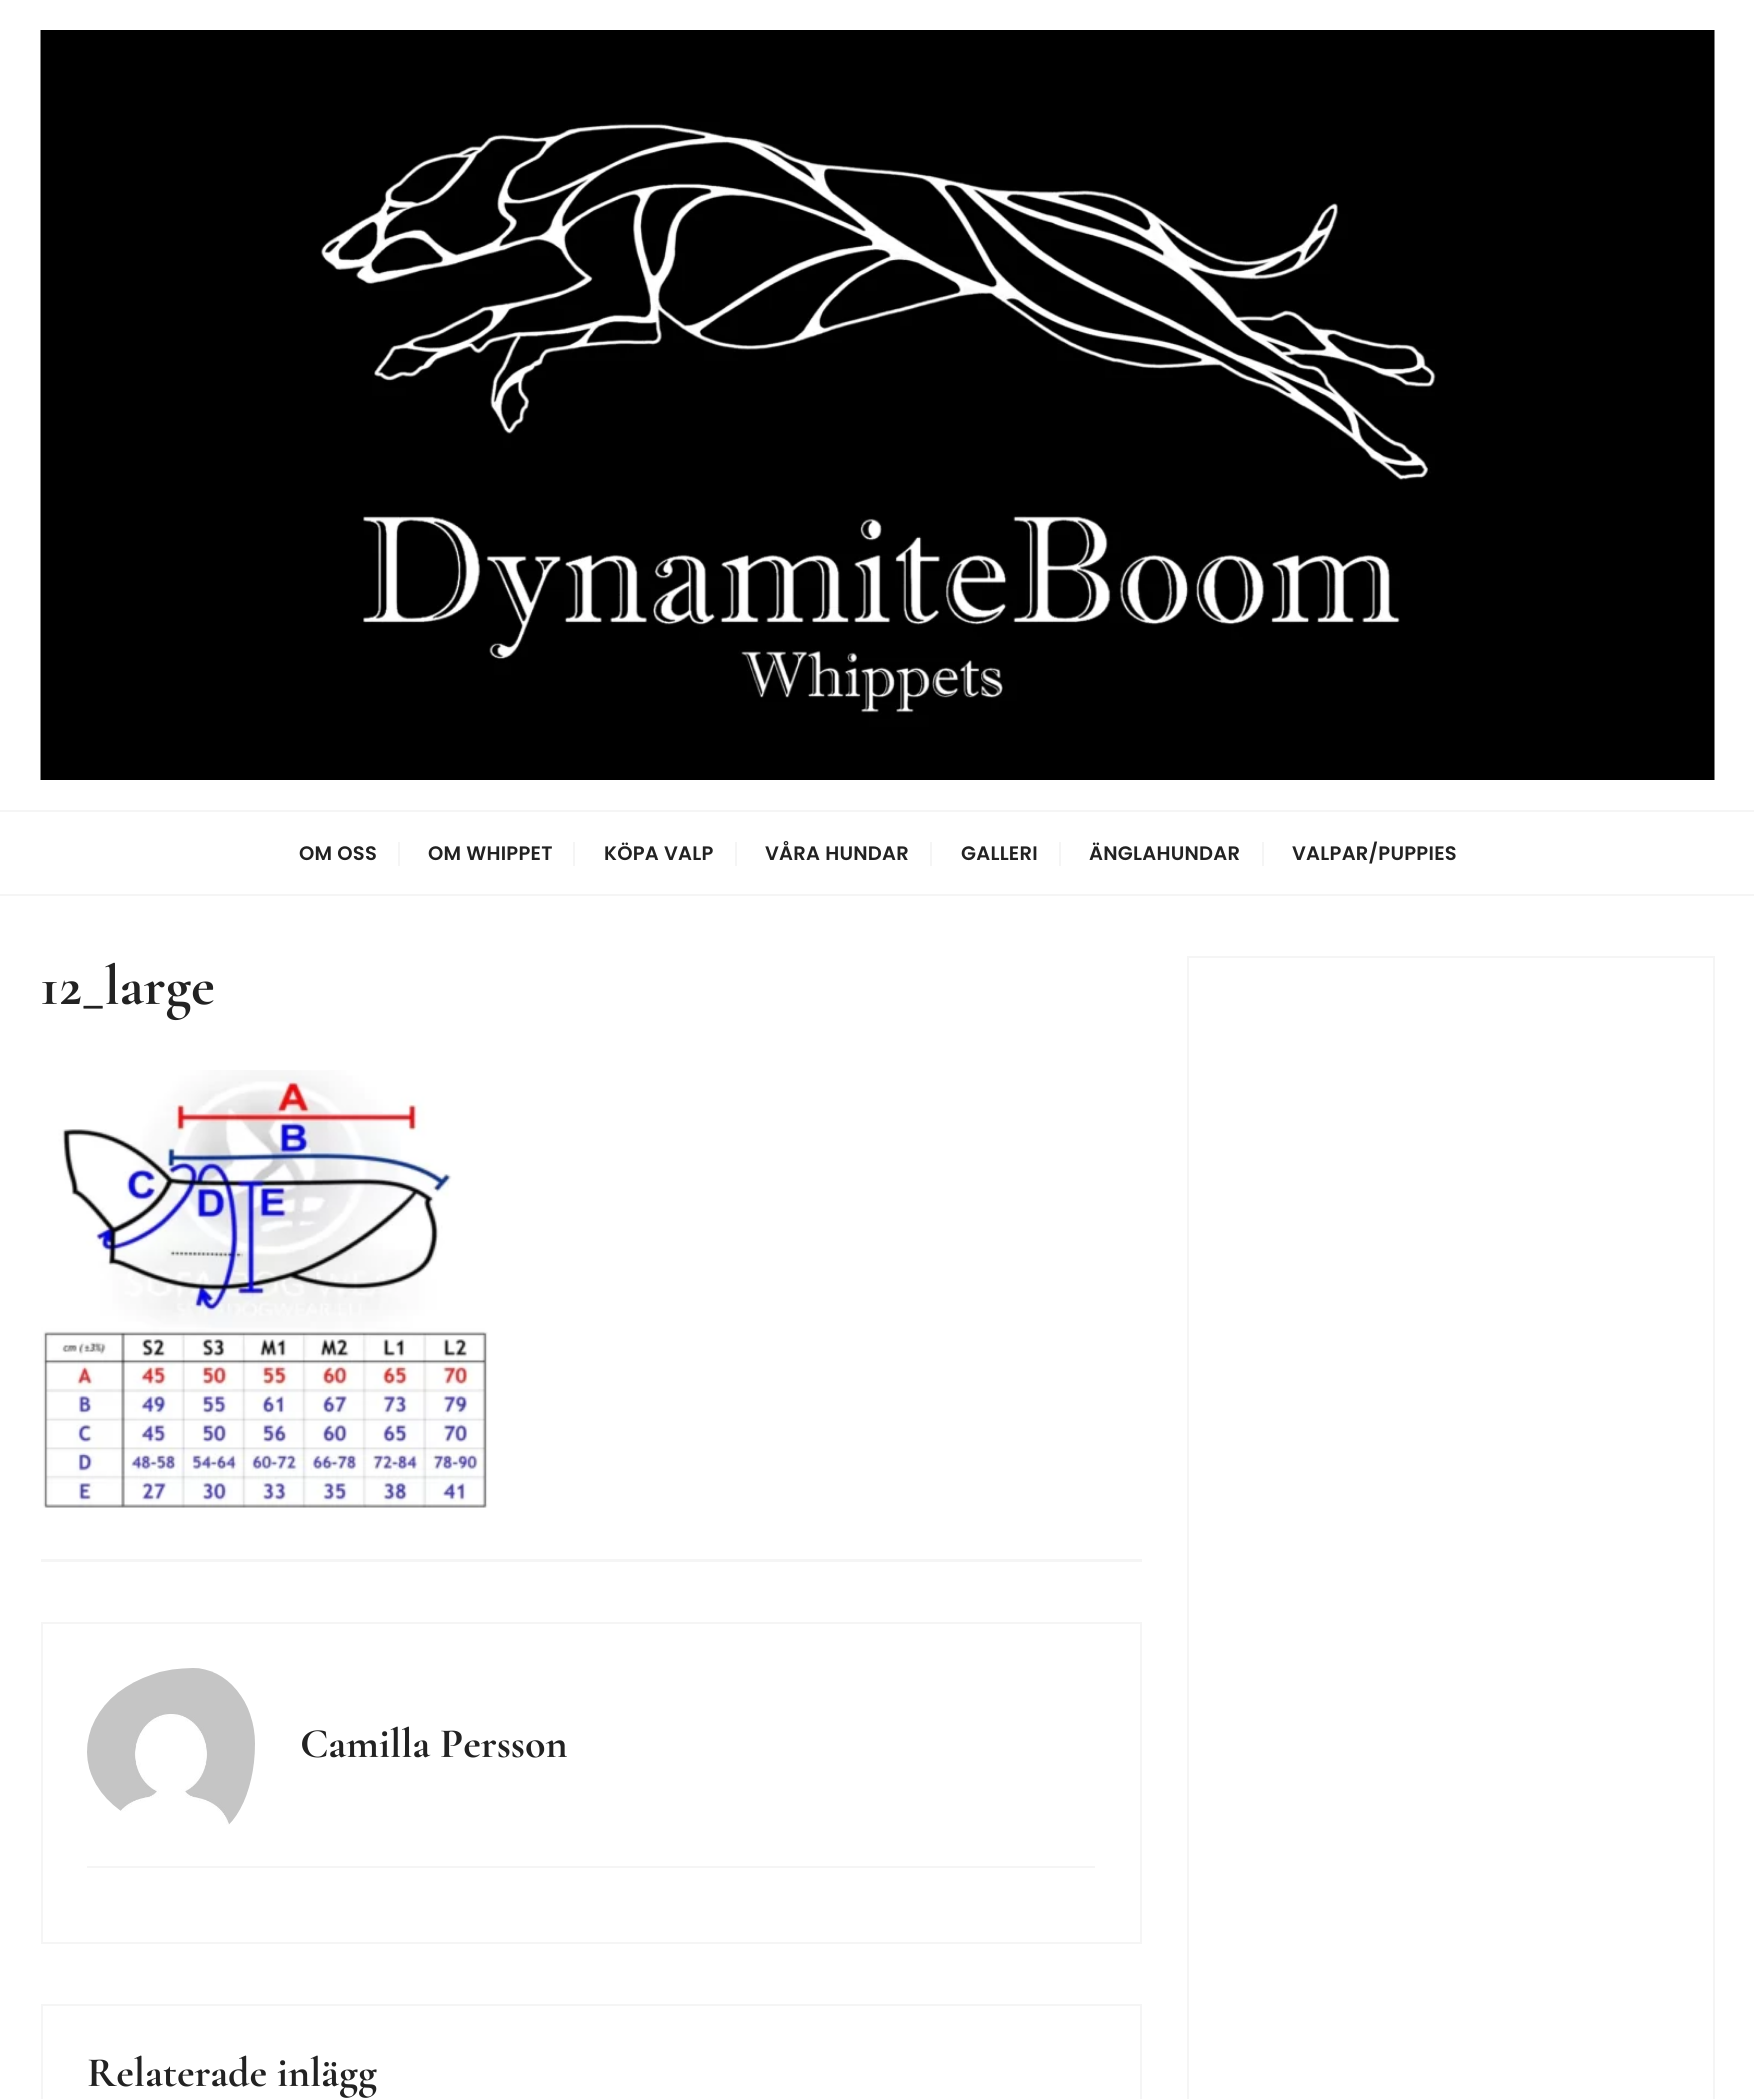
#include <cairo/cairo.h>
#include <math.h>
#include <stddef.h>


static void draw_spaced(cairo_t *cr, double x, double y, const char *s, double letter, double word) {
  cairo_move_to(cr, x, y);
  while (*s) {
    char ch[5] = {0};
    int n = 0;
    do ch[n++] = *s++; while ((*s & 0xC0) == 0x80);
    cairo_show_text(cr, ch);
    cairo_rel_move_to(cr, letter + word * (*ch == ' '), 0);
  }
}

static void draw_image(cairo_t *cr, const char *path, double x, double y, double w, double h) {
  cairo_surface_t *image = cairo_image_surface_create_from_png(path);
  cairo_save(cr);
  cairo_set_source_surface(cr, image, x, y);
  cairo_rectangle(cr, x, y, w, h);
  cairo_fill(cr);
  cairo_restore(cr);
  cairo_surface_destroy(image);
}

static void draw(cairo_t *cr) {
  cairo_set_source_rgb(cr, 1, 1, 1);
  cairo_paint(cr);
  draw_image(cr, "images/1.png", 40, 30, 1675, 750);
  cairo_set_source_rgb(cr, 245 / 255.0, 245 / 255.0, 245 / 255.0);
  cairo_rectangle(cr, 0, 810, 1754, 2);
  cairo_fill(cr);
  cairo_rectangle(cr, 0, 894, 1754, 2);
  cairo_fill(cr);
  cairo_rectangle(cr, 398, 842, 2, 24);
  cairo_fill(cr);
  cairo_rectangle(cr, 573, 842, 2, 24);
  cairo_fill(cr);
  cairo_rectangle(cr, 735, 842, 2, 24);
  cairo_fill(cr);
  cairo_rectangle(cr, 930, 842, 2, 24);
  cairo_fill(cr);
  cairo_rectangle(cr, 1059, 842, 2, 24);
  cairo_fill(cr);
  cairo_rectangle(cr, 1262, 842, 2, 24);
  cairo_fill(cr);
  draw_image(cr, "images/2.png", 41, 1070, 447, 438);
  cairo_rectangle(cr, 41, 1559, 1101, 3);
  cairo_fill(cr);
  cairo_rectangle(cr, 42, 1623, 1099, 320);
  cairo_stroke(cr);
  cairo_rectangle(cr, 87, 1866, 1008, 2);
  cairo_fill(cr);
  draw_image(cr, "images/3.png", 87, 1668, 168, 157);
  cairo_rectangle(cr, 42, 2005, 1099, 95);
  cairo_stroke(cr);
  cairo_rectangle(cr, 1188, 957, 526, 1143);
  cairo_stroke(cr);
  cairo_select_font_face(cr, "Poppins SemiBold", CAIRO_FONT_SLANT_NORMAL, CAIRO_FONT_WEIGHT_NORMAL);
  cairo_set_font_size(cr, 19.5);
  cairo_set_source_rgb(cr, 34 / 255.0, 34 / 255.0, 34 / 255.0);
  draw_spaced(cr, 299, 860, "OM OSS", 0.25, 0);
  draw_spaced(cr, 428, 860, "OM WHIPPET", 0.25, 0);
  draw_spaced(cr, 604, 860, "KÖPA VALP", 0.25, 0);
  draw_spaced(cr, 765, 860, "VÅRA HUNDAR", 0.25, 0);
  draw_spaced(cr, 961, 860, "GALLERI", 0.25, 0);
  draw_spaced(cr, 1089, 860, "ÄNGLAHUNDAR", 0.25, 0);
  draw_spaced(cr, 1292, 860, "VALPAR/PUPPIES", 0.25, 0);
  cairo_select_font_face(cr, "Cormorant Garamond", CAIRO_FONT_SLANT_NORMAL, CAIRO_FONT_WEIGHT_BOLD);
  cairo_set_font_size(cr, 57);
  cairo_move_to(cr, 40, 1004);
  cairo_show_text(cr, "12_large");
  cairo_set_font_size(cr, 42);
  cairo_move_to(cr, 300, 1757);
  cairo_show_text(cr, "Camilla Persson");
  cairo_move_to(cr, 87, 2086);
  cairo_show_text(cr, "Relaterade inlägg");
}

int main(void) {
  cairo_surface_t *surface = cairo_image_surface_create(CAIRO_FORMAT_RGB24, 1754, 2099);
  cairo_t *cr = cairo_create(surface);
  cairo_font_options_t *options = cairo_font_options_create();
  cairo_font_options_set_hint_metrics(options, CAIRO_HINT_METRICS_OFF);
  cairo_font_options_set_hint_style(options, CAIRO_HINT_STYLE_NONE);
  cairo_set_font_options(cr, options);
  cairo_set_miter_limit(cr, 4);
  draw(cr);
  cairo_surface_write_to_png(surface, "out.png");
  cairo_font_options_destroy(options);
  cairo_destroy(cr);
  cairo_surface_destroy(surface);
  return 0;
}
